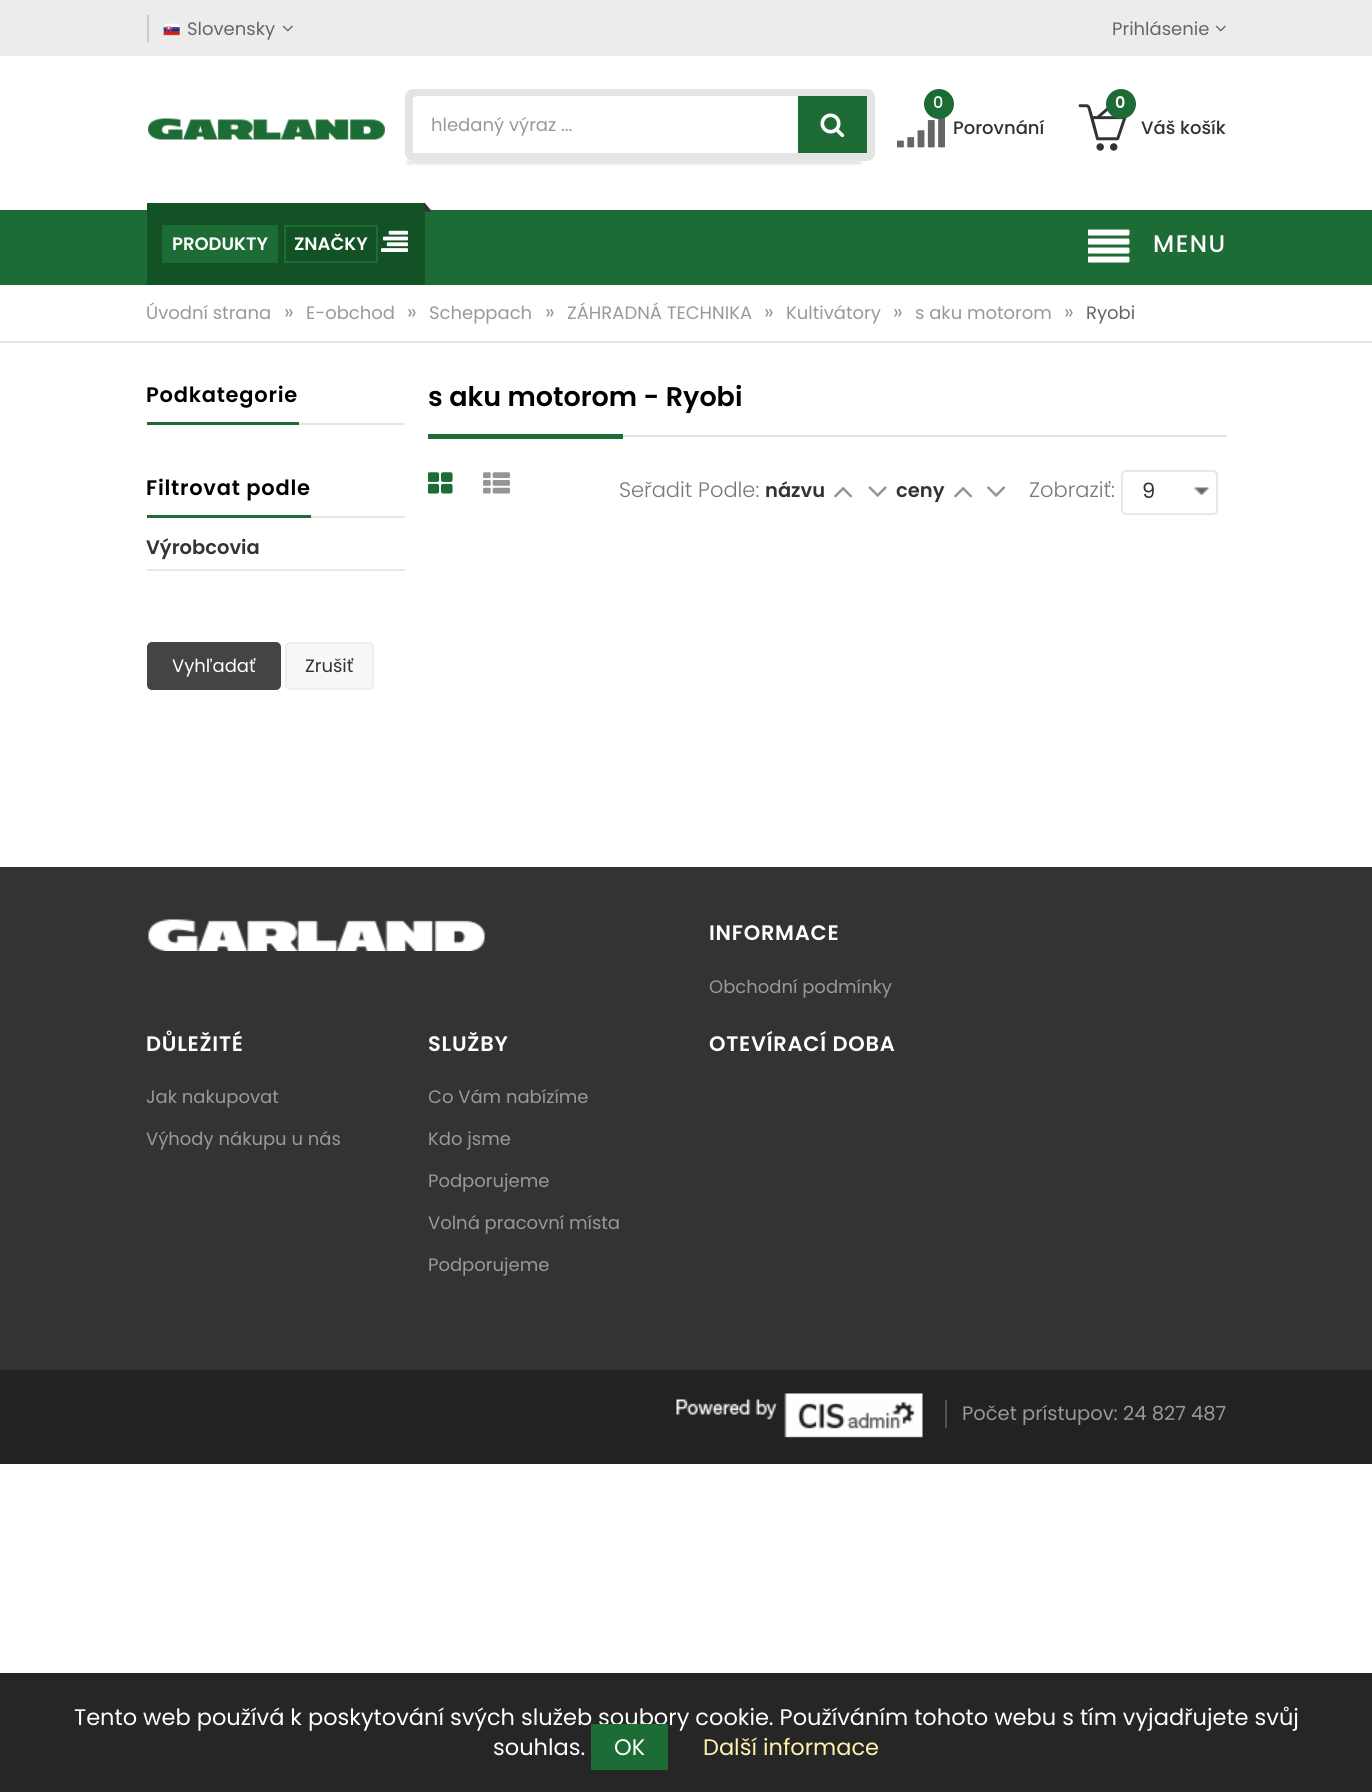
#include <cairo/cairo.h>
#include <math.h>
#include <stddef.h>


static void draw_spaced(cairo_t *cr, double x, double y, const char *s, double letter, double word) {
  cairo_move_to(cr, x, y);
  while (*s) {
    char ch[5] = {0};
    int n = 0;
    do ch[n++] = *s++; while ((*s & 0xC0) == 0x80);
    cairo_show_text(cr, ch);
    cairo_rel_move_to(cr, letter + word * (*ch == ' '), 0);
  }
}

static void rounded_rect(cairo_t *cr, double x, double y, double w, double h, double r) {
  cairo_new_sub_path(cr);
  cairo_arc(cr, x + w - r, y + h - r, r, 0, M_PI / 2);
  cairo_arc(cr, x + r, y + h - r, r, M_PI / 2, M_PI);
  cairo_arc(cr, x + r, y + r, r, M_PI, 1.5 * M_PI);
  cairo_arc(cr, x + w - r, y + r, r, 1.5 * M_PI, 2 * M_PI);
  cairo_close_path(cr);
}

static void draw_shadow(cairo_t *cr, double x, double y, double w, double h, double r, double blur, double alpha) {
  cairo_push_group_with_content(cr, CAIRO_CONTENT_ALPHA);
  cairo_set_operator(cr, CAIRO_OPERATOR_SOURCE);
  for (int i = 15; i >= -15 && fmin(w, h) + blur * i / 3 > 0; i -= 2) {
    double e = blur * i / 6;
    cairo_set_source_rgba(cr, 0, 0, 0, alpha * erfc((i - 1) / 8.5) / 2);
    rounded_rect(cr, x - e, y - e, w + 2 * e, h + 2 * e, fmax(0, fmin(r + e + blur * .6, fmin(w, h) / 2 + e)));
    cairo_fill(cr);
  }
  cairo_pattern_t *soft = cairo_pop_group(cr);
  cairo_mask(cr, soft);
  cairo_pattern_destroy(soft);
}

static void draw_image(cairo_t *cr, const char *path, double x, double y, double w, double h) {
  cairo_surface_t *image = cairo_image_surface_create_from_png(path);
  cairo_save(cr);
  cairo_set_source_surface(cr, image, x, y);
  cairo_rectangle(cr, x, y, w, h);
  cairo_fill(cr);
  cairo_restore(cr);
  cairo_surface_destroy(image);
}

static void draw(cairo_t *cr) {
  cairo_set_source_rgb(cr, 1, 1, 1);
  cairo_paint(cr);
  cairo_set_source_rgb(cr, 236 / 255.0, 236 / 255.0, 236 / 255.0);
  cairo_rectangle(cr, 0, 0, 1372, 56);
  cairo_fill(cr);
  cairo_set_source_rgb(cr, 204 / 255.0, 204 / 255.0, 204 / 255.0);
  cairo_rectangle(cr, 147, 15, 2, 27);
  cairo_fill(cr);
  draw_image(cr, "images/1.png", 163, 23, 17, 13);
  draw_image(cr, "images/2.png", 282, 25, 11, 7);
  draw_image(cr, "images/2.png", 1215, 25, 11, 7);
  draw_image(cr, "images/3.png", 148, 118, 237, 22);
  rounded_rect(cr, 409, 93, 462, 64, 4);
  cairo_set_source_rgb(cr, 228 / 255.0, 228 / 255.0, 228 / 255.0);
  cairo_set_line_width(cr, 8);
  cairo_stroke(cr);
  cairo_set_source_rgb(cr, 1, 1, 1);
  cairo_new_path(cr);
  cairo_move_to(cr, 418, 96);
  cairo_line_to(cr, 867, 96);
  cairo_line_to(cr, 867, 153);
  cairo_line_to(cr, 418, 153);
  cairo_curve_to(cr, 415, 153, 413, 151, 413, 148);
  cairo_line_to(cr, 413, 101);
  cairo_curve_to(cr, 413, 98, 415, 96, 418, 96);
  cairo_close_path(cr);
  cairo_fill(cr);
  cairo_set_source_rgb(cr, 30 / 255.0, 108 / 255.0, 53 / 255.0);
  cairo_rectangle(cr, 798, 96, 69, 57);
  cairo_fill(cr);
  draw_image(cr, "images/4.png", 820, 113, 25, 25);
  cairo_set_source_rgb(cr, 234 / 255.0, 234 / 255.0, 234 / 255.0);
  draw_shadow(cr, 407, 161, 454, 3, 0, 2, 1);
  cairo_set_source_rgb(cr, 232 / 255.0, 232 / 255.0, 232 / 255.0);
  cairo_rectangle(cr, 407, 161, 454, 3);
  cairo_fill(cr);
  draw_image(cr, "images/5.png", 897, 117, 48, 31);
  cairo_set_source_rgb(cr, 30 / 255.0, 108 / 255.0, 53 / 255.0);
  cairo_arc(cr, 939, 104, 15, 0, 2 * M_PI);
  cairo_fill(cr);
  draw_image(cr, "images/6.png", 1078, 104, 49, 47);
  cairo_arc(cr, 1121, 104, 15, 0, 2 * M_PI);
  cairo_fill(cr);
  cairo_rectangle(cr, 0, 210, 1372, 75);
  cairo_fill(cr);
  cairo_set_source_rgb(cr, 18 / 255.0, 82 / 255.0, 37 / 255.0);
  cairo_rectangle(cr, 147, 203, 278, 82);
  cairo_fill(cr);
  cairo_set_source_rgb(cr, 51 / 255.0, 51 / 255.0, 51 / 255.0);
  cairo_new_path(cr);
  cairo_move_to(cr, 424.5, 211.5);
  cairo_line_to(cr, 424.5, 202.5);
  cairo_line_to(cr, 432, 211.5);
  cairo_close_path(cr);
  cairo_fill(cr);
  cairo_set_source_rgb(cr, 30 / 255.0, 108 / 255.0, 53 / 255.0);
  cairo_rectangle(cr, 162, 225, 116, 38);
  cairo_fill(cr);
  cairo_rectangle(cr, 285, 226, 92, 36);
  cairo_set_line_width(cr, 2);
  cairo_stroke(cr);
  draw_image(cr, "images/7.png", 381, 230, 27, 22);
  draw_image(cr, "images/8.png", 1088, 229, 42, 34);
  cairo_set_source_rgb(cr, 229 / 255.0, 229 / 255.0, 229 / 255.0);
  cairo_rectangle(cr, 0, 341, 1372, 2);
  cairo_fill(cr);
  cairo_rectangle(cr, 299, 423, 106, 2);
  cairo_fill(cr);
  cairo_set_source_rgb(cr, 30 / 255.0, 108 / 255.0, 53 / 255.0);
  cairo_rectangle(cr, 147, 422, 152, 3);
  cairo_fill(cr);
  cairo_set_source_rgb(cr, 229 / 255.0, 229 / 255.0, 229 / 255.0);
  cairo_rectangle(cr, 311, 516, 94, 2);
  cairo_fill(cr);
  cairo_set_source_rgb(cr, 30 / 255.0, 108 / 255.0, 53 / 255.0);
  cairo_rectangle(cr, 147, 515, 164, 3);
  cairo_fill(cr);
  cairo_set_source_rgb(cr, 232 / 255.0, 232 / 255.0, 232 / 255.0);
  cairo_rectangle(cr, 147, 569, 258, 2);
  cairo_fill(cr);
  cairo_set_source_rgb(cr, 68 / 255.0, 68 / 255.0, 68 / 255.0);
  rounded_rect(cr, 148, 643, 132, 46, 4);
  cairo_fill_preserve(cr);
  cairo_stroke(cr);
  cairo_set_source_rgb(cr, 248 / 255.0, 248 / 255.0, 248 / 255.0);
  rounded_rect(cr, 286, 643, 87, 46, 4);
  cairo_fill_preserve(cr);
  cairo_set_source_rgb(cr, 238 / 255.0, 238 / 255.0, 238 / 255.0);
  cairo_stroke(cr);
  cairo_set_source_rgb(cr, 229 / 255.0, 229 / 255.0, 229 / 255.0);
  cairo_rectangle(cr, 623, 435, 604, 2);
  cairo_fill(cr);
  cairo_set_source_rgb(cr, 30 / 255.0, 108 / 255.0, 53 / 255.0);
  cairo_rectangle(cr, 428, 434, 195, 5);
  cairo_fill(cr);
  draw_image(cr, "images/9.png", 428, 472, 25, 22);
  draw_image(cr, "images/10.png", 483, 472, 27, 22);
  draw_image(cr, "images/11.png", 834, 486, 19, 12);
  draw_image(cr, "images/12.png", 868, 486, 19, 11);
  draw_image(cr, "images/11.png", 954, 486, 19, 12);
  draw_image(cr, "images/13.png", 987, 486, 19, 11);
  draw_image(cr, "images/14.png", 1194, 487, 16, 8);
  rounded_rect(cr, 1122, 471, 95, 43, 4);
  cairo_set_source_rgb(cr, 232 / 255.0, 232 / 255.0, 232 / 255.0);
  cairo_stroke(cr);
  cairo_set_source_rgb(cr, 51 / 255.0, 51 / 255.0, 51 / 255.0);
  cairo_rectangle(cr, 0, 867, 1372, 503);
  cairo_fill(cr);
  draw_image(cr, "images/15.png", 148, 919, 337, 32);
  cairo_set_source_rgb(cr, 34 / 255.0, 34 / 255.0, 34 / 255.0);
  cairo_rectangle(cr, 0, 1370, 1372, 94);
  cairo_fill(cr);
  draw_image(cr, "images/16.png", 676, 1393, 247, 45);
  cairo_set_source_rgb(cr, 79 / 255.0, 81 / 255.0, 92 / 255.0);
  cairo_rectangle(cr, 945, 1400, 2, 28);
  cairo_fill(cr);
  cairo_set_source_rgb(cr, 38 / 255.0, 38 / 255.0, 38 / 255.0);
  cairo_rectangle(cr, 0, 1673, 1372, 119);
  cairo_fill(cr);
  cairo_select_font_face(cr, "Poppins", CAIRO_FONT_SLANT_NORMAL, CAIRO_FONT_WEIGHT_NORMAL);
  cairo_set_font_size(cr, 18);
  cairo_set_source_rgb(cr, 102 / 255.0, 102 / 255.0, 102 / 255.0);
  cairo_move_to(cr, 187, 35);
  cairo_show_text(cr, "Slovensky");
  cairo_move_to(cr, 1112, 35);
  cairo_show_text(cr, "Prihlásenie");
  cairo_set_source_rgb(cr, 153 / 255.0, 153 / 255.0, 153 / 255.0);
  cairo_move_to(cr, 431, 131);
  cairo_show_text(cr, "hledaný výraz ...");
  cairo_select_font_face(cr, "Poppins Medium", CAIRO_FONT_SLANT_NORMAL, CAIRO_FONT_WEIGHT_NORMAL);
  cairo_set_font_size(cr, 16);
  cairo_set_source_rgb(cr, 1, 1, 1);
  cairo_move_to(cr, 933, 108);
  cairo_show_text(cr, "0");
  cairo_set_font_size(cr, 18);
  cairo_set_source_rgb(cr, 51 / 255.0, 51 / 255.0, 51 / 255.0);
  cairo_move_to(cr, 953, 134);
  cairo_show_text(cr, "Porovnání");
  cairo_select_font_face(cr, "Poppins SemiBold", CAIRO_FONT_SLANT_NORMAL, CAIRO_FONT_WEIGHT_NORMAL);
  cairo_set_font_size(cr, 16);
  cairo_set_source_rgb(cr, 1, 1, 1);
  cairo_move_to(cr, 1115, 108);
  cairo_show_text(cr, "0");
  cairo_select_font_face(cr, "Poppins Medium", CAIRO_FONT_SLANT_NORMAL, CAIRO_FONT_WEIGHT_NORMAL);
  cairo_set_font_size(cr, 18);
  cairo_set_source_rgb(cr, 51 / 255.0, 51 / 255.0, 51 / 255.0);
  cairo_move_to(cr, 1141, 134);
  cairo_show_text(cr, "Váš košík");
  cairo_select_font_face(cr, "Poppins SemiBold", CAIRO_FONT_SLANT_NORMAL, CAIRO_FONT_WEIGHT_NORMAL);
  cairo_set_source_rgb(cr, 1, 1, 1);
  cairo_move_to(cr, 172, 250);
  cairo_show_text(cr, "PRODUKTY");
  cairo_move_to(cr, 294, 250);
  cairo_show_text(cr, "ZNAČKY");
  cairo_select_font_face(cr, "Poppins Medium", CAIRO_FONT_SLANT_NORMAL, CAIRO_FONT_WEIGHT_NORMAL);
  cairo_set_font_size(cr, 24);
  draw_spaced(cr, 1153, 252, "MENU", 1.5, 0);
  cairo_select_font_face(cr, "Poppins", CAIRO_FONT_SLANT_NORMAL, CAIRO_FONT_WEIGHT_NORMAL);
  cairo_set_font_size(cr, 18);
  cairo_set_source_rgb(cr, 153 / 255.0, 153 / 255.0, 153 / 255.0);
  cairo_move_to(cr, 146, 319);
  cairo_show_text(cr, "Úvodní strana");
  cairo_set_font_size(cr, 21);
  cairo_move_to(cr, 284, 319);
  cairo_show_text(cr, "»");
  cairo_set_font_size(cr, 18);
  cairo_move_to(cr, 306, 319);
  cairo_show_text(cr, "E-obchod");
  cairo_set_font_size(cr, 21);
  cairo_move_to(cr, 407, 319);
  cairo_show_text(cr, "»");
  cairo_set_font_size(cr, 18);
  cairo_move_to(cr, 429, 319);
  cairo_show_text(cr, "Scheppach");
  cairo_set_font_size(cr, 21);
  cairo_move_to(cr, 545, 319);
  cairo_show_text(cr, "»");
  cairo_set_font_size(cr, 18);
  cairo_move_to(cr, 567, 319);
  cairo_show_text(cr, "ZÁHRADNÁ TECHNIKA");
  cairo_set_font_size(cr, 21);
  cairo_move_to(cr, 764, 319);
  cairo_show_text(cr, "»");
  cairo_set_font_size(cr, 18);
  cairo_move_to(cr, 786, 319);
  cairo_show_text(cr, "Kultivátory");
  cairo_set_font_size(cr, 21);
  cairo_move_to(cr, 893, 319);
  cairo_show_text(cr, "»");
  cairo_set_font_size(cr, 18);
  cairo_move_to(cr, 915, 319);
  cairo_show_text(cr, "s aku motorom");
  cairo_set_font_size(cr, 21);
  cairo_move_to(cr, 1064, 319);
  cairo_show_text(cr, "»");
  cairo_set_font_size(cr, 18);
  cairo_set_source_rgb(cr, 102 / 255.0, 102 / 255.0, 102 / 255.0);
  cairo_move_to(cr, 1086, 319);
  cairo_show_text(cr, "Ryobi");
  cairo_select_font_face(cr, "Poppins SemiBold", CAIRO_FONT_SLANT_NORMAL, CAIRO_FONT_WEIGHT_NORMAL);
  cairo_set_font_size(cr, 21);
  cairo_set_source_rgb(cr, 0, 0, 0);
  draw_spaced(cr, 146, 402, "Podkategorie", 0.75, 0);
  draw_spaced(cr, 146, 495, "Filtrovat podle", 0.75, 0);
  cairo_set_font_size(cr, 19.5);
  cairo_set_source_rgb(cr, 51 / 255.0, 51 / 255.0, 51 / 255.0);
  cairo_move_to(cr, 146, 554);
  cairo_show_text(cr, "Výrobcovia");
  cairo_select_font_face(cr, "Poppins", CAIRO_FONT_SLANT_NORMAL, CAIRO_FONT_WEIGHT_NORMAL);
  cairo_set_font_size(cr, 18);
  cairo_set_source_rgb(cr, 1, 1, 1);
  cairo_move_to(cr, 172, 672);
  cairo_show_text(cr, "Vyhľadať");
  cairo_set_source_rgb(cr, 51 / 255.0, 51 / 255.0, 51 / 255.0);
  cairo_move_to(cr, 305, 672);
  cairo_show_text(cr, "Zrušiť");
  cairo_select_font_face(cr, "Poppins SemiBold", CAIRO_FONT_SLANT_NORMAL, CAIRO_FONT_WEIGHT_NORMAL);
  cairo_set_font_size(cr, 27);
  cairo_set_source_rgb(cr, 0, 0, 0);
  cairo_move_to(cr, 428, 406);
  cairo_show_text(cr, "s aku motorom - Ryobi");
  cairo_select_font_face(cr, "Poppins Light", CAIRO_FONT_SLANT_NORMAL, CAIRO_FONT_WEIGHT_NORMAL);
  cairo_set_font_size(cr, 21);
  cairo_set_source_rgb(cr, 119 / 255.0, 119 / 255.0, 119 / 255.0);
  cairo_move_to(cr, 619, 497);
  cairo_show_text(cr, "Seřadit Podle:");
  cairo_select_font_face(cr, "Poppins SemiBold", CAIRO_FONT_SLANT_NORMAL, CAIRO_FONT_WEIGHT_NORMAL);
  cairo_set_font_size(cr, 19.5);
  cairo_set_source_rgb(cr, 51 / 255.0, 51 / 255.0, 51 / 255.0);
  cairo_move_to(cr, 765, 497);
  cairo_show_text(cr, "názvu");
  cairo_move_to(cr, 896, 497);
  cairo_show_text(cr, "ceny");
  cairo_select_font_face(cr, "Poppins Light", CAIRO_FONT_SLANT_NORMAL, CAIRO_FONT_WEIGHT_NORMAL);
  cairo_set_font_size(cr, 21);
  cairo_set_source_rgb(cr, 119 / 255.0, 119 / 255.0, 119 / 255.0);
  cairo_move_to(cr, 1029, 497);
  cairo_show_text(cr, "Zobraziť:");
  cairo_select_font_face(cr, "Poppins", CAIRO_FONT_SLANT_NORMAL, CAIRO_FONT_WEIGHT_NORMAL);
  cairo_set_source_rgb(cr, 51 / 255.0, 51 / 255.0, 51 / 255.0);
  cairo_move_to(cr, 1142, 498);
  cairo_show_text(cr, "9");
  cairo_select_font_face(cr, "Poppins SemiBold", CAIRO_FONT_SLANT_NORMAL, CAIRO_FONT_WEIGHT_NORMAL);
  cairo_set_source_rgb(cr, 1, 1, 1);
  draw_spaced(cr, 709, 940, "INFORMACE", 0.75, 0);
  cairo_select_font_face(cr, "Poppins", CAIRO_FONT_SLANT_NORMAL, CAIRO_FONT_WEIGHT_NORMAL);
  cairo_set_font_size(cr, 18);
  cairo_set_source_rgb(cr, 153 / 255.0, 153 / 255.0, 153 / 255.0);
  cairo_move_to(cr, 709, 993);
  cairo_show_text(cr, "Obchodní podmínky");
  cairo_select_font_face(cr, "Poppins SemiBold", CAIRO_FONT_SLANT_NORMAL, CAIRO_FONT_WEIGHT_NORMAL);
  cairo_set_font_size(cr, 21);
  cairo_set_source_rgb(cr, 1, 1, 1);
  draw_spaced(cr, 146, 1051, "DŮLEŽITÉ", 0.75, 0);
  cairo_select_font_face(cr, "Poppins", CAIRO_FONT_SLANT_NORMAL, CAIRO_FONT_WEIGHT_NORMAL);
  cairo_set_font_size(cr, 18);
  cairo_set_source_rgb(cr, 153 / 255.0, 153 / 255.0, 153 / 255.0);
  cairo_move_to(cr, 146, 1103);
  cairo_show_text(cr, "Jak nakupovat");
  cairo_move_to(cr, 146, 1145);
  cairo_show_text(cr, "Výhody nákupu u nás");
  cairo_select_font_face(cr, "Poppins SemiBold", CAIRO_FONT_SLANT_NORMAL, CAIRO_FONT_WEIGHT_NORMAL);
  cairo_set_font_size(cr, 21);
  cairo_set_source_rgb(cr, 1, 1, 1);
  draw_spaced(cr, 428, 1051, "SLUŽBY", 0.75, 0);
  cairo_select_font_face(cr, "Poppins", CAIRO_FONT_SLANT_NORMAL, CAIRO_FONT_WEIGHT_NORMAL);
  cairo_set_font_size(cr, 18);
  cairo_set_source_rgb(cr, 153 / 255.0, 153 / 255.0, 153 / 255.0);
  cairo_move_to(cr, 428, 1103);
  cairo_show_text(cr, "Co Vám nabízíme");
  cairo_move_to(cr, 428, 1145);
  cairo_show_text(cr, "Kdo jsme");
  cairo_move_to(cr, 428, 1187);
  cairo_show_text(cr, "Podporujeme");
  cairo_move_to(cr, 428, 1229);
  cairo_show_text(cr, "Volná pracovní místa");
  cairo_move_to(cr, 428, 1271);
  cairo_show_text(cr, "Podporujeme");
  cairo_select_font_face(cr, "Poppins SemiBold", CAIRO_FONT_SLANT_NORMAL, CAIRO_FONT_WEIGHT_NORMAL);
  cairo_set_font_size(cr, 21);
  cairo_set_source_rgb(cr, 1, 1, 1);
  draw_spaced(cr, 709, 1051, "OTEVÍRACÍ DOBA", 0.75, 0);
  cairo_select_font_face(cr, "Poppins", CAIRO_FONT_SLANT_NORMAL, CAIRO_FONT_WEIGHT_NORMAL);
  cairo_set_font_size(cr, 19.5);
  cairo_set_source_rgb(cr, 153 / 255.0, 153 / 255.0, 153 / 255.0);
  cairo_move_to(cr, 962, 1420);
  cairo_show_text(cr, "Počet prístupov: 24 827 487");
  cairo_set_font_size(cr, 22.5);
  cairo_set_source_rgb(cr, 1, 1, 1);
  cairo_move_to(cr, 74, 1725);
  cairo_show_text(cr, "Tento web používá k poskytování svých služeb soubory cookie. Používáním tohoto webu s tím vyjadřujete svůj");
  cairo_move_to(cr, 493, 1755);
  cairo_show_text(cr, "souhlas.");
  cairo_set_source_rgb(cr, 29 / 255.0, 108 / 255.0, 53 / 255.0);
  cairo_rectangle(cr, 591, 1724, 77, 46);
  cairo_fill(cr);
  cairo_set_source_rgb(cr, 1, 1, 1);
  cairo_move_to(cr, 614, 1755);
  cairo_show_text(cr, "OK");
  cairo_set_source_rgb(cr, 1, 242 / 255.0, 174 / 255.0);
  cairo_move_to(cr, 703, 1755);
  cairo_show_text(cr, "Další informace");
}

int main(void) {
  cairo_surface_t *surface = cairo_image_surface_create(CAIRO_FORMAT_RGB24, 1372, 1792);
  cairo_t *cr = cairo_create(surface);
  cairo_font_options_t *options = cairo_font_options_create();
  cairo_font_options_set_hint_metrics(options, CAIRO_HINT_METRICS_OFF);
  cairo_font_options_set_hint_style(options, CAIRO_HINT_STYLE_NONE);
  cairo_set_font_options(cr, options);
  cairo_set_miter_limit(cr, 4);
  draw(cr);
  cairo_surface_write_to_png(surface, "out.png");
  cairo_font_options_destroy(options);
  cairo_destroy(cr);
  cairo_surface_destroy(surface);
  return 0;
}
